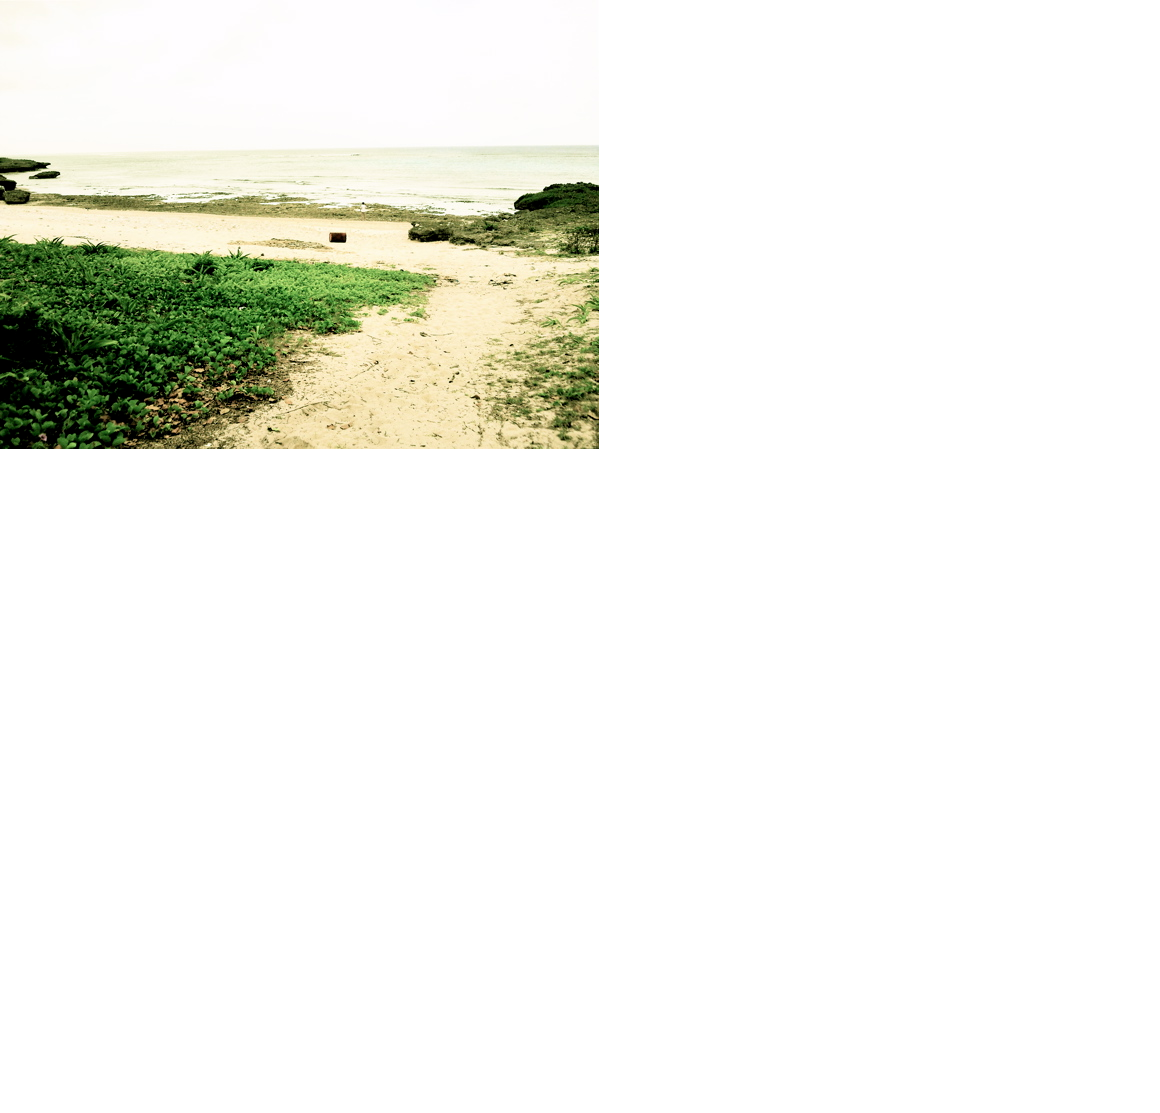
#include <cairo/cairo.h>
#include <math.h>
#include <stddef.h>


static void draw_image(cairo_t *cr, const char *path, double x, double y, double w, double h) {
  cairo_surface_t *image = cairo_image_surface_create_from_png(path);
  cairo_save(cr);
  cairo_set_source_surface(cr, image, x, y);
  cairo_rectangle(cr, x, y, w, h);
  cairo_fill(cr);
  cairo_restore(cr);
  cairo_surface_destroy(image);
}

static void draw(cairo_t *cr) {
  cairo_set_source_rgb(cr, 1, 1, 1);
  cairo_paint(cr);
  draw_image(cr, "images/1.png", 0, 0, 599, 449);
}

int main(void) {
  cairo_surface_t *surface = cairo_image_surface_create(CAIRO_FORMAT_RGB24, 1160, 1113);
  cairo_t *cr = cairo_create(surface);
  cairo_font_options_t *options = cairo_font_options_create();
  cairo_font_options_set_hint_metrics(options, CAIRO_HINT_METRICS_OFF);
  cairo_font_options_set_hint_style(options, CAIRO_HINT_STYLE_NONE);
  cairo_set_font_options(cr, options);
  cairo_set_miter_limit(cr, 4);
  draw(cr);
  cairo_surface_write_to_png(surface, "out.png");
  cairo_font_options_destroy(options);
  cairo_destroy(cr);
  cairo_surface_destroy(surface);
  return 0;
}
